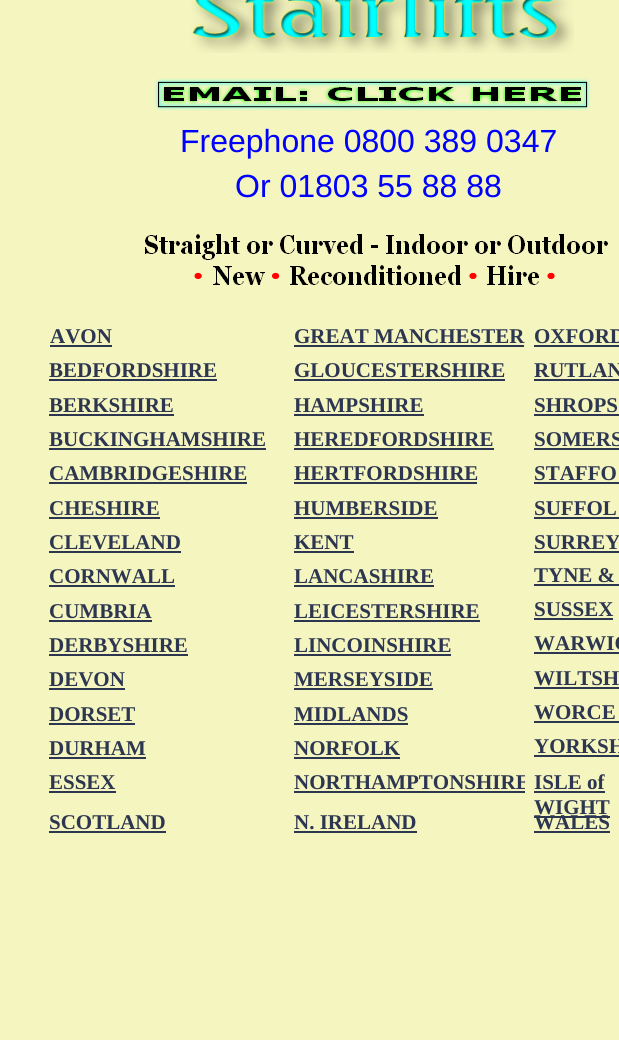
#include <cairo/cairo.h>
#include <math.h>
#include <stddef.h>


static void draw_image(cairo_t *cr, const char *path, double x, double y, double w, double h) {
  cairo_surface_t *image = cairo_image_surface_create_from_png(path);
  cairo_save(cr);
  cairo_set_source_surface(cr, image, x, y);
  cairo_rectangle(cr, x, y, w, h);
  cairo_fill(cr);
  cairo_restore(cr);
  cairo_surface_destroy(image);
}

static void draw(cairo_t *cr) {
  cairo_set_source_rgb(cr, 245 / 255.0, 245 / 255.0, 191 / 255.0);
  cairo_paint(cr);
  draw_image(cr, "images/1.png", 191, 0, 383, 53);
  draw_image(cr, "images/2.png", 154, 78, 437, 33);
  draw_image(cr, "images/3.png", 145, 234, 463, 51);
  cairo_set_source_rgb(cr, 44 / 255.0, 54 / 255.0, 81 / 255.0);
  cairo_rectangle(cr, 50, 345, 62, 2);
  cairo_fill(cr);
  cairo_rectangle(cr, 294, 345, 230, 2);
  cairo_fill(cr);
  cairo_rectangle(cr, 534, 345, 85, 2);
  cairo_fill(cr);
  cairo_rectangle(cr, 49, 379, 168, 2);
  cairo_fill(cr);
  cairo_rectangle(cr, 294, 379, 211, 2);
  cairo_fill(cr);
  cairo_rectangle(cr, 534, 379, 85, 2);
  cairo_fill(cr);
  cairo_rectangle(cr, 49, 414, 125, 2);
  cairo_fill(cr);
  cairo_rectangle(cr, 294, 414, 130, 2);
  cairo_fill(cr);
  cairo_rectangle(cr, 534, 414, 85, 2);
  cairo_fill(cr);
  cairo_rectangle(cr, 49, 448, 217, 2);
  cairo_fill(cr);
  cairo_rectangle(cr, 294, 448, 200, 2);
  cairo_fill(cr);
  cairo_rectangle(cr, 534, 448, 85, 2);
  cairo_fill(cr);
  cairo_rectangle(cr, 49, 482, 198, 2);
  cairo_fill(cr);
  cairo_rectangle(cr, 294, 482, 183, 2);
  cairo_fill(cr);
  cairo_rectangle(cr, 534, 482, 85, 2);
  cairo_fill(cr);
  cairo_rectangle(cr, 49, 517, 111, 2);
  cairo_fill(cr);
  cairo_rectangle(cr, 294, 517, 144, 2);
  cairo_fill(cr);
  cairo_rectangle(cr, 534, 517, 85, 2);
  cairo_fill(cr);
  cairo_rectangle(cr, 49, 551, 132, 2);
  cairo_fill(cr);
  cairo_rectangle(cr, 294, 551, 60, 2);
  cairo_fill(cr);
  cairo_rectangle(cr, 534, 551, 85, 2);
  cairo_fill(cr);
  cairo_rectangle(cr, 49, 585, 126, 2);
  cairo_fill(cr);
  cairo_rectangle(cr, 294, 585, 140, 2);
  cairo_fill(cr);
  cairo_rectangle(cr, 534, 584, 85, 2);
  cairo_fill(cr);
  cairo_rectangle(cr, 49, 620, 103, 2);
  cairo_fill(cr);
  cairo_rectangle(cr, 294, 620, 186, 2);
  cairo_fill(cr);
  cairo_rectangle(cr, 534, 618, 79, 2);
  cairo_fill(cr);
  cairo_rectangle(cr, 49, 654, 139, 2);
  cairo_fill(cr);
  cairo_rectangle(cr, 294, 654, 157, 2);
  cairo_fill(cr);
  cairo_rectangle(cr, 534, 652, 85, 2);
  cairo_fill(cr);
  cairo_rectangle(cr, 49, 688, 76, 2);
  cairo_fill(cr);
  cairo_rectangle(cr, 294, 688, 139, 2);
  cairo_fill(cr);
  cairo_rectangle(cr, 534, 687, 85, 2);
  cairo_fill(cr);
  cairo_rectangle(cr, 49, 723, 86, 2);
  cairo_fill(cr);
  cairo_rectangle(cr, 294, 723, 114, 2);
  cairo_fill(cr);
  cairo_rectangle(cr, 534, 721, 85, 2);
  cairo_fill(cr);
  cairo_rectangle(cr, 49, 757, 97, 2);
  cairo_fill(cr);
  cairo_rectangle(cr, 294, 757, 106, 2);
  cairo_fill(cr);
  cairo_rectangle(cr, 534, 755, 85, 2);
  cairo_fill(cr);
  cairo_rectangle(cr, 49, 791, 67, 2);
  cairo_fill(cr);
  cairo_rectangle(cr, 294, 791, 231, 2);
  cairo_fill(cr);
  cairo_rectangle(cr, 534, 791, 71, 2);
  cairo_fill(cr);
  cairo_rectangle(cr, 534, 816, 76, 2);
  cairo_fill(cr);
  cairo_rectangle(cr, 49, 831, 117, 2);
  cairo_fill(cr);
  cairo_rectangle(cr, 294, 831, 123, 2);
  cairo_fill(cr);
  cairo_rectangle(cr, 534, 831, 76, 2);
  cairo_fill(cr);
  cairo_select_font_face(cr, "Liberation Sans", CAIRO_FONT_SLANT_NORMAL, CAIRO_FONT_WEIGHT_NORMAL);
  cairo_set_font_size(cr, 32);
  cairo_set_source_rgb(cr, 0, 0, 1);
  cairo_move_to(cr, 180, 152);
  cairo_show_text(cr, "Freephone 0800 389 0347");
  cairo_move_to(cr, 235, 197);
  cairo_show_text(cr, "Or 01803 55 88 88");
  cairo_select_font_face(cr, "Liberation Serif", CAIRO_FONT_SLANT_NORMAL, CAIRO_FONT_WEIGHT_BOLD);
  cairo_set_font_size(cr, 21);
  cairo_set_source_rgb(cr, 44 / 255.0, 54 / 255.0, 81 / 255.0);
  cairo_move_to(cr, 50, 343);
  cairo_show_text(cr, "AVON");
  cairo_move_to(cr, 294, 343);
  cairo_show_text(cr, "GREAT MANCHESTER");
  cairo_move_to(cr, 534, 343);
  cairo_show_text(cr, "OXFORD");
  cairo_move_to(cr, 49, 377);
  cairo_show_text(cr, "BEDFORDSHIRE");
  cairo_move_to(cr, 294, 377);
  cairo_show_text(cr, "GLOUCESTERSHIRE");
  cairo_move_to(cr, 534, 377);
  cairo_show_text(cr, "RUTLAN");
  cairo_move_to(cr, 49, 412);
  cairo_show_text(cr, "BERKSHIRE");
  cairo_move_to(cr, 294, 412);
  cairo_show_text(cr, "HAMPSHIRE");
  cairo_move_to(cr, 534, 412);
  cairo_show_text(cr, "SHROPS");
  cairo_move_to(cr, 49, 446);
  cairo_show_text(cr, "BUCKINGHAMSHIRE");
  cairo_move_to(cr, 294, 446);
  cairo_show_text(cr, "HEREDFORDSHIRE");
  cairo_move_to(cr, 534, 446);
  cairo_show_text(cr, "SOMERS");
  cairo_move_to(cr, 49, 480);
  cairo_show_text(cr, "CAMBRIDGESHIRE");
  cairo_save(cr);
  cairo_rectangle(cr, 294, 461, 183, 25);
  cairo_clip(cr);
  cairo_move_to(cr, 294, 480);
  cairo_show_text(cr, "HERTFORDSHIRE");
  cairo_restore(cr);
  cairo_move_to(cr, 534, 480);
  cairo_show_text(cr, "STAFFO");
  cairo_move_to(cr, 49, 515);
  cairo_show_text(cr, "CHESHIRE");
  cairo_move_to(cr, 294, 515);
  cairo_show_text(cr, "HUMBERSIDE");
  cairo_move_to(cr, 534, 515);
  cairo_show_text(cr, "SUFFOL");
  cairo_move_to(cr, 49, 549);
  cairo_show_text(cr, "CLEVELAND");
  cairo_move_to(cr, 294, 549);
  cairo_show_text(cr, "KENT");
  cairo_move_to(cr, 534, 549);
  cairo_show_text(cr, "SURREY");
  cairo_move_to(cr, 49, 583);
  cairo_show_text(cr, "CORNWALL");
  cairo_move_to(cr, 294, 583);
  cairo_show_text(cr, "LANCASHIRE");
  cairo_move_to(cr, 534, 582);
  cairo_show_text(cr, "TYNE &");
  cairo_move_to(cr, 49, 618);
  cairo_show_text(cr, "CUMBRIA");
  cairo_move_to(cr, 294, 618);
  cairo_show_text(cr, "LEICESTERSHIRE");
  cairo_move_to(cr, 534, 616);
  cairo_show_text(cr, "SUSSEX");
  cairo_move_to(cr, 49, 652);
  cairo_show_text(cr, "DERBYSHIRE");
  cairo_move_to(cr, 294, 652);
  cairo_show_text(cr, "LINCOINSHIRE");
  cairo_move_to(cr, 534, 650);
  cairo_show_text(cr, "WARWIC");
  cairo_move_to(cr, 49, 686);
  cairo_show_text(cr, "DEVON");
  cairo_move_to(cr, 294, 686);
  cairo_show_text(cr, "MERSEYSIDE");
  cairo_move_to(cr, 534, 685);
  cairo_show_text(cr, "WILTSH");
  cairo_move_to(cr, 49, 721);
  cairo_show_text(cr, "DORSET");
  cairo_move_to(cr, 294, 721);
  cairo_show_text(cr, "MIDLANDS");
  cairo_move_to(cr, 534, 719);
  cairo_show_text(cr, "WORCE");
  cairo_move_to(cr, 49, 755);
  cairo_show_text(cr, "DURHAM");
  cairo_move_to(cr, 294, 755);
  cairo_show_text(cr, "NORFOLK");
  cairo_move_to(cr, 534, 753);
  cairo_show_text(cr, "YORKSH");
  cairo_move_to(cr, 49, 789);
  cairo_show_text(cr, "ESSEX");
  cairo_save(cr);
  cairo_rectangle(cr, 294, 770, 231, 25);
  cairo_clip(cr);
  cairo_move_to(cr, 294, 789);
  cairo_show_text(cr, "NORTHAMPTONSHIRE");
  cairo_restore(cr);
  cairo_move_to(cr, 534, 789);
  cairo_show_text(cr, "ISLE of");
  cairo_move_to(cr, 534, 814);
  cairo_show_text(cr, "WIGHT");
  cairo_move_to(cr, 49, 829);
  cairo_show_text(cr, "SCOTLAND");
  cairo_move_to(cr, 294, 829);
  cairo_show_text(cr, "N. IRELAND");
  cairo_move_to(cr, 534, 829);
  cairo_show_text(cr, "WALES");
}

int main(void) {
  cairo_surface_t *surface = cairo_image_surface_create(CAIRO_FORMAT_RGB24, 619, 1040);
  cairo_t *cr = cairo_create(surface);
  cairo_font_options_t *options = cairo_font_options_create();
  cairo_font_options_set_hint_metrics(options, CAIRO_HINT_METRICS_OFF);
  cairo_font_options_set_hint_style(options, CAIRO_HINT_STYLE_NONE);
  cairo_set_font_options(cr, options);
  cairo_set_miter_limit(cr, 4);
  draw(cr);
  cairo_surface_write_to_png(surface, "out.png");
  cairo_font_options_destroy(options);
  cairo_destroy(cr);
  cairo_surface_destroy(surface);
  return 0;
}
